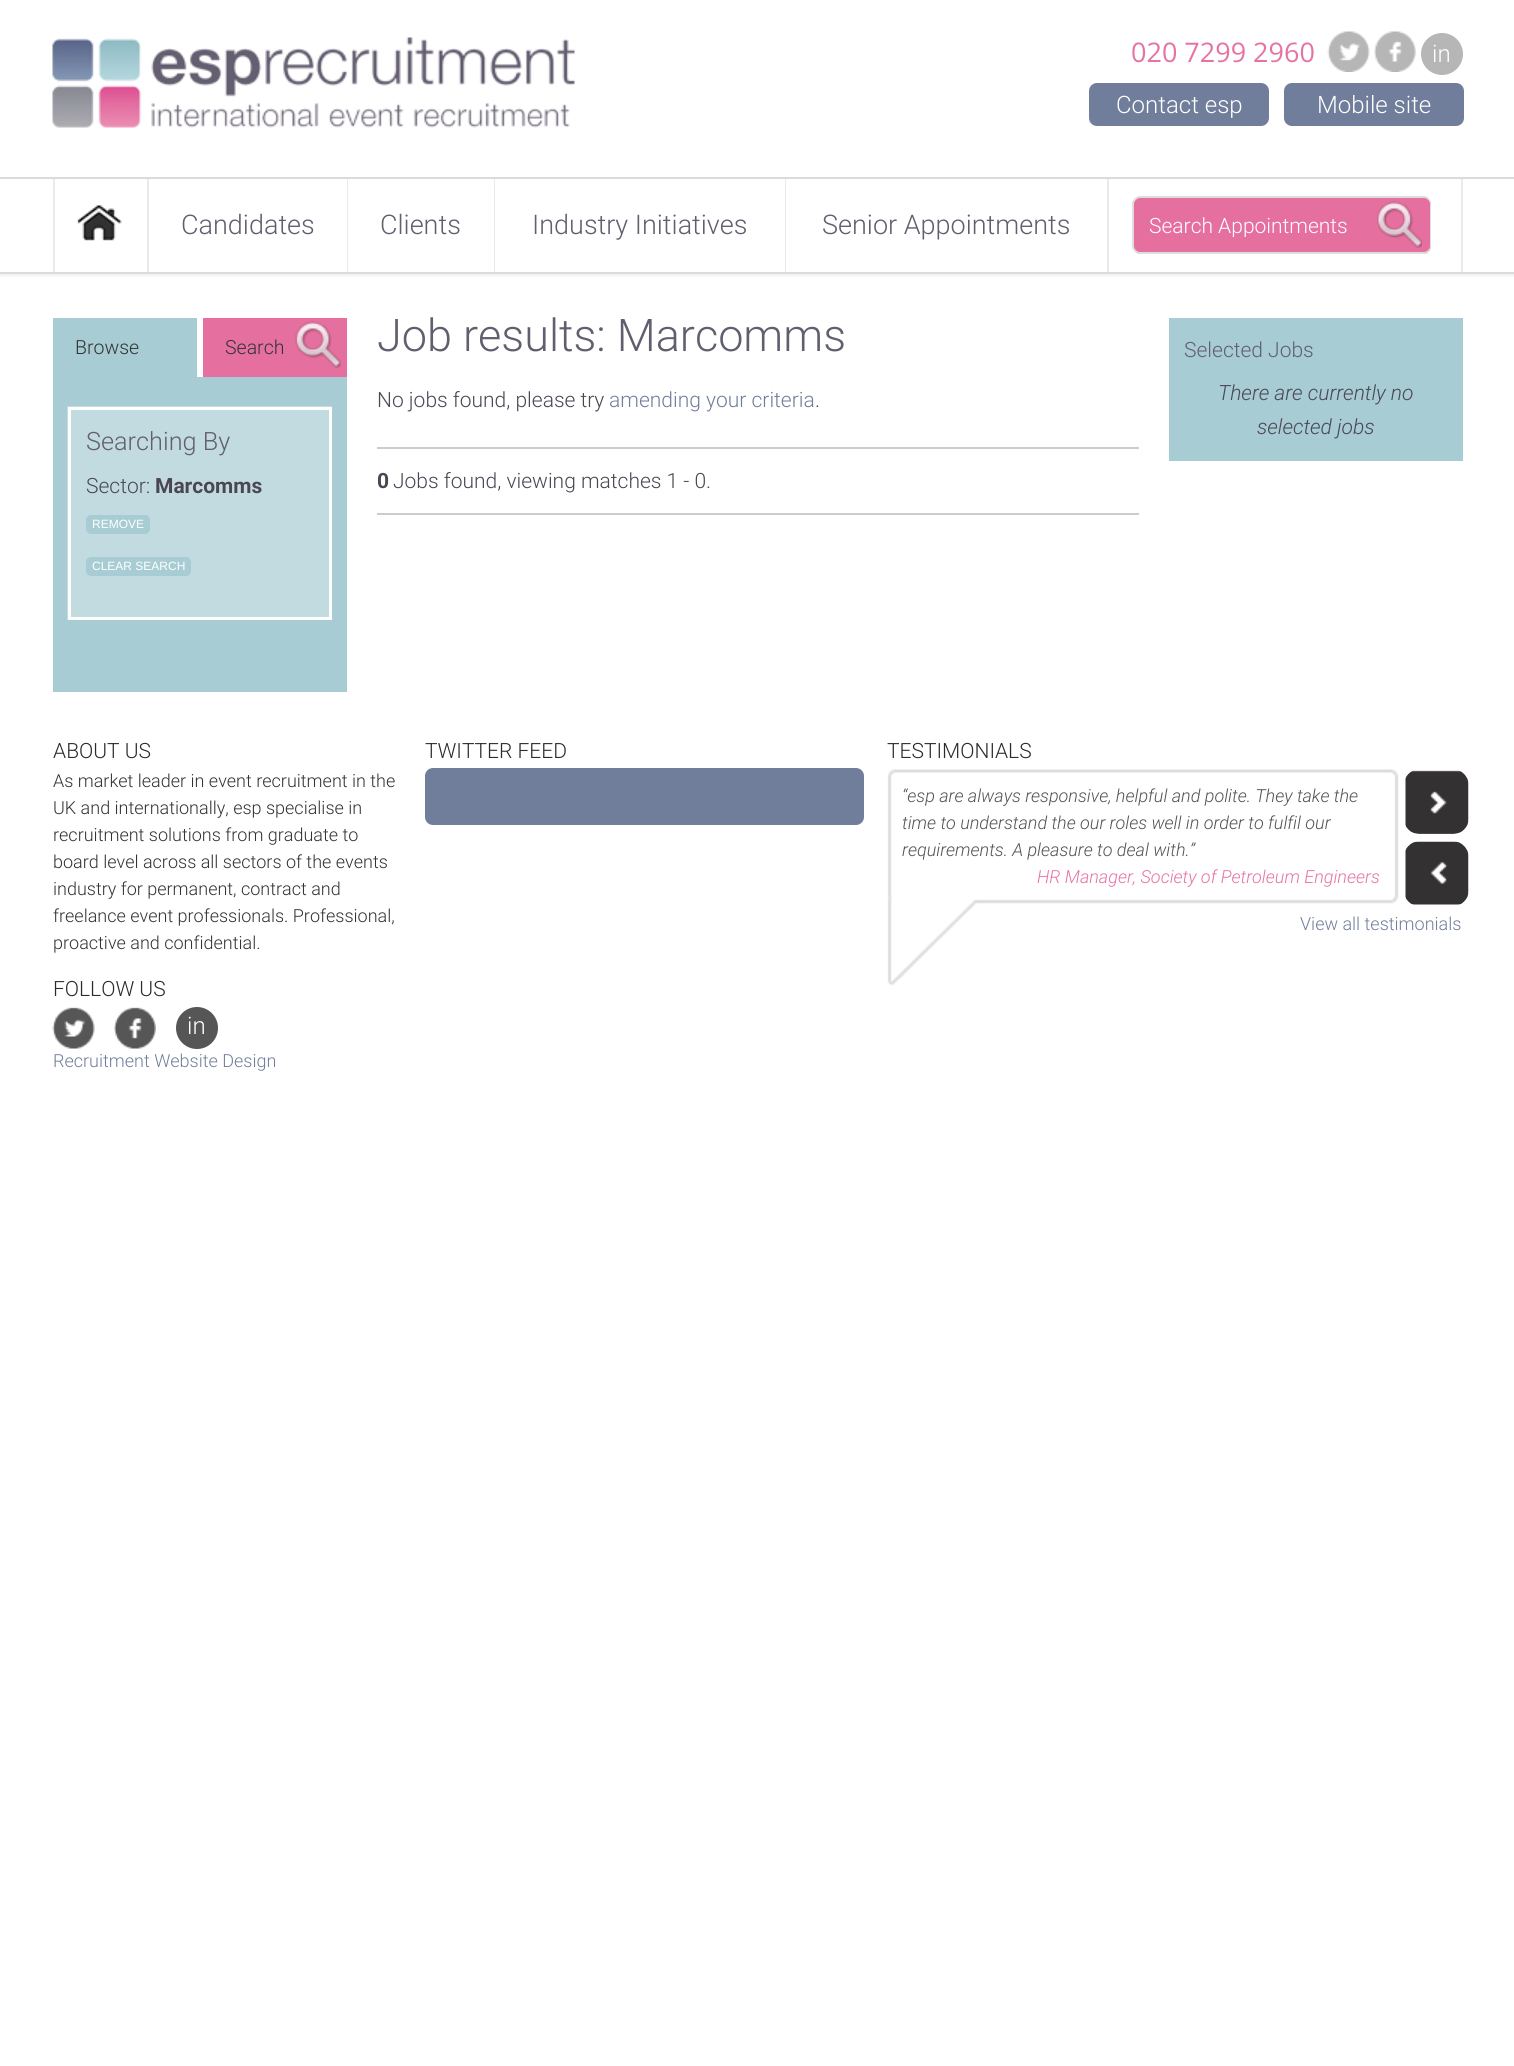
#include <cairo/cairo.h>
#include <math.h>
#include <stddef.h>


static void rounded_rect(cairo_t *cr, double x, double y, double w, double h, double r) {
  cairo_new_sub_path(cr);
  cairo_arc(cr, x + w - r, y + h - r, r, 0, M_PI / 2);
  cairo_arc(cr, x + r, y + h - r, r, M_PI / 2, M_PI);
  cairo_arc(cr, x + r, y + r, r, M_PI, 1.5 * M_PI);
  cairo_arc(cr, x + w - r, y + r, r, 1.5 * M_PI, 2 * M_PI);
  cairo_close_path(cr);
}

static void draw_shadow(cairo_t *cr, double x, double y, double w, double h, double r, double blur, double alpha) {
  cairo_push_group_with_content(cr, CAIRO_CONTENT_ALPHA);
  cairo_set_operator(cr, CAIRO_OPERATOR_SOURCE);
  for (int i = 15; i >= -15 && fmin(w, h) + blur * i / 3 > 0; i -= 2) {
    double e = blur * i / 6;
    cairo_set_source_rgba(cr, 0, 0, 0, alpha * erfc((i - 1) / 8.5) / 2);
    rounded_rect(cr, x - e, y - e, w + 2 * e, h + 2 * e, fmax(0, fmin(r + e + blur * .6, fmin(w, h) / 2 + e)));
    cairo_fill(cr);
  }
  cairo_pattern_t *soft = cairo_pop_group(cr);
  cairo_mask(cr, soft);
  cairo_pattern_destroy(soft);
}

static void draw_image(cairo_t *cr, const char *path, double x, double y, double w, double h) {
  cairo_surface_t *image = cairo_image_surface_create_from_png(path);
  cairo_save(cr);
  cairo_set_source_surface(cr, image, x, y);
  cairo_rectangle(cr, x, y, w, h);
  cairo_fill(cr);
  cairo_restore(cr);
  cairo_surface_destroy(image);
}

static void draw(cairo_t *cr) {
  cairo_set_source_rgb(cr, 1, 1, 1);
  cairo_paint(cr);
  draw_image(cr, "images/1.png", 52, 37, 523, 91);
  draw_image(cr, "images/2.png", 1327, 31, 43, 41);
  draw_image(cr, "images/3.png", 1374, 31, 42, 41);
  cairo_set_source_rgb(cr, 183 / 255.0, 182 / 255.0, 182 / 255.0);
  cairo_arc(cr, 1442, 54, 21, 0, 2 * M_PI);
  cairo_fill(cr);
  cairo_set_source_rgb(cr, 112 / 255.0, 126 / 255.0, 155 / 255.0);
  rounded_rect(cr, 1089, 83, 180, 43, 8);
  cairo_fill(cr);
  rounded_rect(cr, 1284, 83, 180, 43, 8);
  cairo_fill(cr);
  cairo_save(cr);
  cairo_rectangle(cr, 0, 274, 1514, 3);
  cairo_clip(cr);
  cairo_set_source_rgb(cr, 0, 0, 0);
  draw_shadow(cr, 0, 180, 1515, 96, 0, 1.5, 0.07);
  cairo_restore(cr);
  cairo_set_source_rgb(cr, 219 / 255.0, 219 / 255.0, 219 / 255.0);
  cairo_rectangle(cr, 0, 177, 1514, 2);
  cairo_fill(cr);
  cairo_rectangle(cr, 0, 272, 1514, 2);
  cairo_fill(cr);
  cairo_set_source_rgb(cr, 234 / 255.0, 234 / 255.0, 234 / 255.0);
  cairo_rectangle(cr, 53, 179, 2, 93);
  cairo_fill(cr);
  cairo_rectangle(cr, 147, 179, 2, 93);
  cairo_fill(cr);
  draw_image(cr, "images/4.png", 77, 205, 45, 36);
  cairo_rectangle(cr, 347, 179, 1, 93);
  cairo_fill(cr);
  cairo_rectangle(cr, 494, 179, 1, 93);
  cairo_fill(cr);
  cairo_rectangle(cr, 785, 179, 1, 93);
  cairo_fill(cr);
  cairo_rectangle(cr, 1107, 179, 2, 93);
  cairo_fill(cr);
  cairo_rectangle(cr, 1461, 179, 2, 93);
  cairo_fill(cr);
  cairo_set_source_rgb(cr, 229 / 255.0, 112 / 255.0, 160 / 255.0);
  cairo_new_path(cr);
  cairo_move_to(cr, 1141, 197);
  cairo_line_to(cr, 1374, 197);
  cairo_line_to(cr, 1374, 254);
  cairo_line_to(cr, 1141, 254);
  cairo_curve_to(cr, 1136.5, 254, 1133, 250.5, 1133, 246);
  cairo_line_to(cr, 1133, 205);
  cairo_curve_to(cr, 1133, 200.5, 1136.5, 197, 1141, 197);
  cairo_close_path(cr);
  cairo_fill(cr);
  cairo_set_source_rgb(cr, 221 / 255.0, 221 / 255.0, 221 / 255.0);
  cairo_set_fill_rule(cr, CAIRO_FILL_RULE_EVEN_ODD);
  cairo_new_path(cr);
  cairo_move_to(cr, 1140, 196);
  cairo_line_to(cr, 1374, 196);
  cairo_line_to(cr, 1374, 254);
  cairo_line_to(cr, 1140, 254);
  cairo_curve_to(cr, 1136, 254, 1132, 250, 1132, 246);
  cairo_line_to(cr, 1132, 204);
  cairo_curve_to(cr, 1132, 200, 1136, 196, 1140, 196);
  cairo_close_path(cr);
  cairo_move_to(cr, 1140, 198);
  cairo_line_to(cr, 1374, 198);
  cairo_line_to(cr, 1374, 252);
  cairo_line_to(cr, 1140, 252);
  cairo_curve_to(cr, 1137, 252, 1134, 249, 1134, 246);
  cairo_line_to(cr, 1134, 204);
  cairo_curve_to(cr, 1134, 201, 1137, 198, 1140, 198);
  cairo_close_path(cr);
  cairo_fill(cr);
  cairo_set_source_rgb(cr, 229 / 255.0, 112 / 255.0, 160 / 255.0);
  cairo_new_path(cr);
  cairo_move_to(cr, 1374, 197);
  cairo_line_to(cr, 1423, 197);
  cairo_curve_to(cr, 1427.5, 197, 1431, 200.5, 1431, 205);
  cairo_line_to(cr, 1431, 246);
  cairo_curve_to(cr, 1431, 250.5, 1427.5, 254, 1423, 254);
  cairo_line_to(cr, 1374, 254);
  cairo_close_path(cr);
  cairo_fill(cr);
  draw_image(cr, "images/5.png", 1377, 201, 45, 47);
  cairo_set_source_rgb(cr, 221 / 255.0, 221 / 255.0, 221 / 255.0);
  cairo_new_path(cr);
  cairo_move_to(cr, 1374, 196);
  cairo_line_to(cr, 1424, 196);
  cairo_curve_to(cr, 1428, 196, 1431, 200, 1431, 204);
  cairo_line_to(cr, 1431, 246);
  cairo_curve_to(cr, 1431, 250, 1428, 254, 1424, 254);
  cairo_line_to(cr, 1374, 254);
  cairo_close_path(cr);
  cairo_move_to(cr, 1374, 198);
  cairo_line_to(cr, 1424, 198);
  cairo_curve_to(cr, 1427, 198, 1430, 201, 1430, 204);
  cairo_line_to(cr, 1430, 246);
  cairo_curve_to(cr, 1430, 249, 1427, 252, 1424, 252);
  cairo_line_to(cr, 1374, 252);
  cairo_close_path(cr);
  cairo_fill(cr);
  cairo_set_source_rgb(cr, 167 / 255.0, 204 / 255.0, 211 / 255.0);
  cairo_rectangle(cr, 53, 318, 144, 59);
  cairo_fill(cr);
  cairo_set_source_rgb(cr, 229 / 255.0, 112 / 255.0, 160 / 255.0);
  cairo_rectangle(cr, 203, 318, 144, 59);
  cairo_fill(cr);
  draw_image(cr, "images/6.png", 295, 321, 46, 47);
  cairo_set_source_rgb(cr, 167 / 255.0, 204 / 255.0, 211 / 255.0);
  cairo_rectangle(cr, 53, 377, 294, 315);
  cairo_fill(cr);
  cairo_set_source_rgb(cr, 193 / 255.0, 219 / 255.0, 224 / 255.0);
  cairo_rectangle(cr, 67, 406, 265, 214);
  cairo_fill(cr);
  cairo_rectangle(cr, 69.5, 408.5, 261, 210);
  cairo_set_source_rgb(cr, 1, 1, 1);
  cairo_set_line_width(cr, 3);
  cairo_stroke(cr);
  cairo_set_source_rgb(cr, 167 / 255.0, 204 / 255.0, 211 / 255.0);
  rounded_rect(cr, 86, 515, 64, 19, 5);
  cairo_fill(cr);
  rounded_rect(cr, 86, 557, 105, 19, 5);
  cairo_fill(cr);
  cairo_set_source_rgb(cr, 204 / 255.0, 204 / 255.0, 204 / 255.0);
  cairo_rectangle(cr, 377, 447, 762, 2);
  cairo_fill(cr);
  cairo_rectangle(cr, 377, 513, 762, 2);
  cairo_fill(cr);
  cairo_set_source_rgb(cr, 167 / 255.0, 204 / 255.0, 211 / 255.0);
  cairo_rectangle(cr, 1169, 318, 294, 143);
  cairo_fill(cr);
  draw_image(cr, "images/7.png", 52, 1007, 43, 42);
  draw_image(cr, "images/8.png", 114, 1007, 42, 42);
  cairo_set_source_rgb(cr, 86 / 255.0, 86 / 255.0, 86 / 255.0);
  cairo_arc(cr, 197, 1028, 21, 0, 2 * M_PI);
  cairo_fill(cr);
  cairo_set_source_rgb(cr, 112 / 255.0, 126 / 255.0, 155 / 255.0);
  rounded_rect(cr, 425, 768, 439, 57, 8);
  cairo_fill(cr);
  draw_image(cr, "images/9.png", 887, 769, 512, 217);
  draw_image(cr, "images/10.png", 1405, 770, 64, 64);
  draw_image(cr, "images/11.png", 1405, 841, 64, 64);
  cairo_select_font_face(cr, "Open Sans", CAIRO_FONT_SLANT_NORMAL, CAIRO_FONT_WEIGHT_NORMAL);
  cairo_set_font_size(cr, 27);
  cairo_set_source_rgb(cr, 229 / 255.0, 116 / 255.0, 164 / 255.0);
  cairo_move_to(cr, 1131, 62);
  cairo_show_text(cr, "020 7299 2960");
  cairo_select_font_face(cr, "Roboto Light", CAIRO_FONT_SLANT_NORMAL, CAIRO_FONT_WEIGHT_NORMAL);
  cairo_set_font_size(cr, 24);
  cairo_set_source_rgb(cr, 1, 1, 1);
  cairo_move_to(cr, 1432, 62);
  cairo_show_text(cr, "in");
  cairo_move_to(cr, 1116, 113);
  cairo_show_text(cr, "Contact esp");
  cairo_move_to(cr, 1317, 113);
  cairo_show_text(cr, "Mobile site");
  cairo_set_font_size(cr, 27);
  cairo_set_source_rgb(cr, 99 / 255.0, 94 / 255.0, 110 / 255.0);
  cairo_move_to(cr, 181, 234);
  cairo_show_text(cr, "Candidates");
  cairo_move_to(cr, 380, 234);
  cairo_show_text(cr, "Clients");
  cairo_move_to(cr, 532, 234);
  cairo_show_text(cr, "Industry Initiatives");
  cairo_move_to(cr, 822, 234);
  cairo_show_text(cr, "Senior Appointments");
  cairo_save(cr);
  cairo_set_fill_rule(cr, CAIRO_FILL_RULE_WINDING);
  cairo_rectangle(cr, 1149, 213, 210, 24);
  cairo_clip(cr);
  cairo_set_font_size(cr, 21);
  cairo_set_source_rgb(cr, 1, 1, 1);
  cairo_move_to(cr, 1149, 233);
  cairo_show_text(cr, "Search Appointments");
  cairo_restore(cr);
  cairo_set_font_size(cr, 19.5);
  cairo_set_source_rgb(cr, 51 / 255.0, 51 / 255.0, 51 / 255.0);
  cairo_move_to(cr, 75, 354);
  cairo_show_text(cr, "Browse");
  cairo_move_to(cr, 225, 354);
  cairo_show_text(cr, "Search");
  cairo_set_font_size(cr, 25.25);
  cairo_set_source_rgb(cr, 99 / 255.0, 94 / 255.0, 110 / 255.0);
  cairo_move_to(cr, 86, 450);
  cairo_show_text(cr, "Searching By");
  cairo_set_font_size(cr, 21);
  cairo_set_source_rgb(cr, 74 / 255.0, 71 / 255.0, 83 / 255.0);
  cairo_move_to(cr, 86, 493);
  cairo_show_text(cr, "Sector:");
  cairo_select_font_face(cr, "Roboto", CAIRO_FONT_SLANT_NORMAL, CAIRO_FONT_WEIGHT_BOLD);
  cairo_move_to(cr, 155, 493);
  cairo_show_text(cr, "Marcomms");
  cairo_select_font_face(cr, "Liberation Sans", CAIRO_FONT_SLANT_NORMAL, CAIRO_FONT_WEIGHT_NORMAL);
  cairo_set_font_size(cr, 12);
  cairo_set_source_rgb(cr, 1, 1, 1);
  cairo_move_to(cr, 92, 528);
  cairo_show_text(cr, "REMOVE");
  cairo_move_to(cr, 92, 570);
  cairo_show_text(cr, "CLEAR SEARCH");
  cairo_select_font_face(cr, "Roboto Light", CAIRO_FONT_SLANT_NORMAL, CAIRO_FONT_WEIGHT_NORMAL);
  cairo_set_font_size(cr, 45);
  cairo_set_source_rgb(cr, 99 / 255.0, 94 / 255.0, 110 / 255.0);
  cairo_move_to(cr, 377, 351);
  cairo_show_text(cr, "Job results: Marcomms");
  cairo_set_font_size(cr, 21);
  cairo_set_source_rgb(cr, 74 / 255.0, 71 / 255.0, 83 / 255.0);
  cairo_move_to(cr, 377, 407);
  cairo_show_text(cr, "No jobs found, please try");
  cairo_set_source_rgb(cr, 112 / 255.0, 126 / 255.0, 155 / 255.0);
  cairo_move_to(cr, 609, 407);
  cairo_show_text(cr, "amending your criteria");
  cairo_set_source_rgb(cr, 74 / 255.0, 71 / 255.0, 83 / 255.0);
  cairo_move_to(cr, 815, 407);
  cairo_show_text(cr, ".");
  cairo_select_font_face(cr, "Roboto", CAIRO_FONT_SLANT_NORMAL, CAIRO_FONT_WEIGHT_BOLD);
  cairo_move_to(cr, 377, 488);
  cairo_show_text(cr, "0");
  cairo_select_font_face(cr, "Roboto Light", CAIRO_FONT_SLANT_NORMAL, CAIRO_FONT_WEIGHT_NORMAL);
  cairo_move_to(cr, 393, 488);
  cairo_show_text(cr, "Jobs found, viewing matches 1 - 0.");
  cairo_set_source_rgb(cr, 99 / 255.0, 94 / 255.0, 110 / 255.0);
  cairo_move_to(cr, 1184, 357);
  cairo_show_text(cr, "Selected Jobs");
  cairo_select_font_face(cr, "Roboto Light", CAIRO_FONT_SLANT_ITALIC, CAIRO_FONT_WEIGHT_NORMAL);
  cairo_set_source_rgb(cr, 74 / 255.0, 71 / 255.0, 83 / 255.0);
  cairo_move_to(cr, 1218, 400);
  cairo_show_text(cr, "There are currently no");
  cairo_move_to(cr, 1257, 434);
  cairo_show_text(cr, "selected jobs");
  cairo_select_font_face(cr, "Roboto Light", CAIRO_FONT_SLANT_NORMAL, CAIRO_FONT_WEIGHT_NORMAL);
  cairo_set_source_rgb(cr, 43 / 255.0, 43 / 255.0, 43 / 255.0);
  cairo_move_to(cr, 53, 758);
  cairo_show_text(cr, "ABOUT US");
  cairo_set_font_size(cr, 18);
  cairo_set_source_rgb(cr, 51 / 255.0, 51 / 255.0, 51 / 255.0);
  cairo_move_to(cr, 53, 787);
  cairo_show_text(cr, "As market leader in event recruitment in the");
  cairo_move_to(cr, 53, 814);
  cairo_show_text(cr, "UK and internationally, esp specialise in");
  cairo_move_to(cr, 53, 841);
  cairo_show_text(cr, "recruitment solutions from graduate to");
  cairo_move_to(cr, 53, 868);
  cairo_show_text(cr, "board level across all sectors of the events");
  cairo_move_to(cr, 53, 895);
  cairo_show_text(cr, "industry for permanent, contract and");
  cairo_move_to(cr, 53, 922);
  cairo_show_text(cr, "freelance event professionals. Professional,");
  cairo_move_to(cr, 53, 949);
  cairo_show_text(cr, "proactive and confidential.");
  cairo_set_font_size(cr, 21);
  cairo_set_source_rgb(cr, 43 / 255.0, 43 / 255.0, 43 / 255.0);
  cairo_move_to(cr, 53, 996);
  cairo_show_text(cr, "FOLLOW US");
  cairo_set_font_size(cr, 24);
  cairo_set_source_rgb(cr, 1, 1, 1);
  cairo_move_to(cr, 187, 1034);
  cairo_show_text(cr, "in");
  cairo_set_font_size(cr, 21);
  cairo_set_source_rgb(cr, 43 / 255.0, 43 / 255.0, 43 / 255.0);
  cairo_move_to(cr, 425, 758);
  cairo_show_text(cr, "TWITTER FEED");
  cairo_move_to(cr, 887, 758);
  cairo_show_text(cr, "TESTIMONIALS");
  cairo_select_font_face(cr, "Roboto Light", CAIRO_FONT_SLANT_ITALIC, CAIRO_FONT_WEIGHT_NORMAL);
  cairo_set_font_size(cr, 18);
  cairo_set_source_rgb(cr, 83 / 255.0, 83 / 255.0, 83 / 255.0);
  cairo_move_to(cr, 902, 802);
  cairo_show_text(cr, "“esp are always responsive, helpful and polite. They take the");
  cairo_move_to(cr, 902, 829);
  cairo_show_text(cr, "time to understand the our roles well in order to fulfil our");
  cairo_move_to(cr, 902, 856);
  cairo_show_text(cr, "requirements. A pleasure to deal with.”");
  cairo_set_source_rgb(cr, 229 / 255.0, 116 / 255.0, 164 / 255.0);
  cairo_move_to(cr, 1037, 883);
  cairo_show_text(cr, "HR Manager, Society of Petroleum Engineers");
  cairo_select_font_face(cr, "Roboto Light", CAIRO_FONT_SLANT_NORMAL, CAIRO_FONT_WEIGHT_NORMAL);
  cairo_set_source_rgb(cr, 112 / 255.0, 126 / 255.0, 155 / 255.0);
  cairo_move_to(cr, 1300, 930);
  cairo_show_text(cr, "View all testimonials");
  cairo_move_to(cr, 53, 1067);
  cairo_show_text(cr, "Recruitment Website Design");
}

int main(void) {
  cairo_surface_t *surface = cairo_image_surface_create(CAIRO_FORMAT_RGB24, 1514, 2066);
  cairo_t *cr = cairo_create(surface);
  cairo_font_options_t *options = cairo_font_options_create();
  cairo_font_options_set_hint_metrics(options, CAIRO_HINT_METRICS_OFF);
  cairo_font_options_set_hint_style(options, CAIRO_HINT_STYLE_NONE);
  cairo_set_font_options(cr, options);
  cairo_set_miter_limit(cr, 4);
  draw(cr);
  cairo_surface_write_to_png(surface, "out.png");
  cairo_font_options_destroy(options);
  cairo_destroy(cr);
  cairo_surface_destroy(surface);
  return 0;
}
